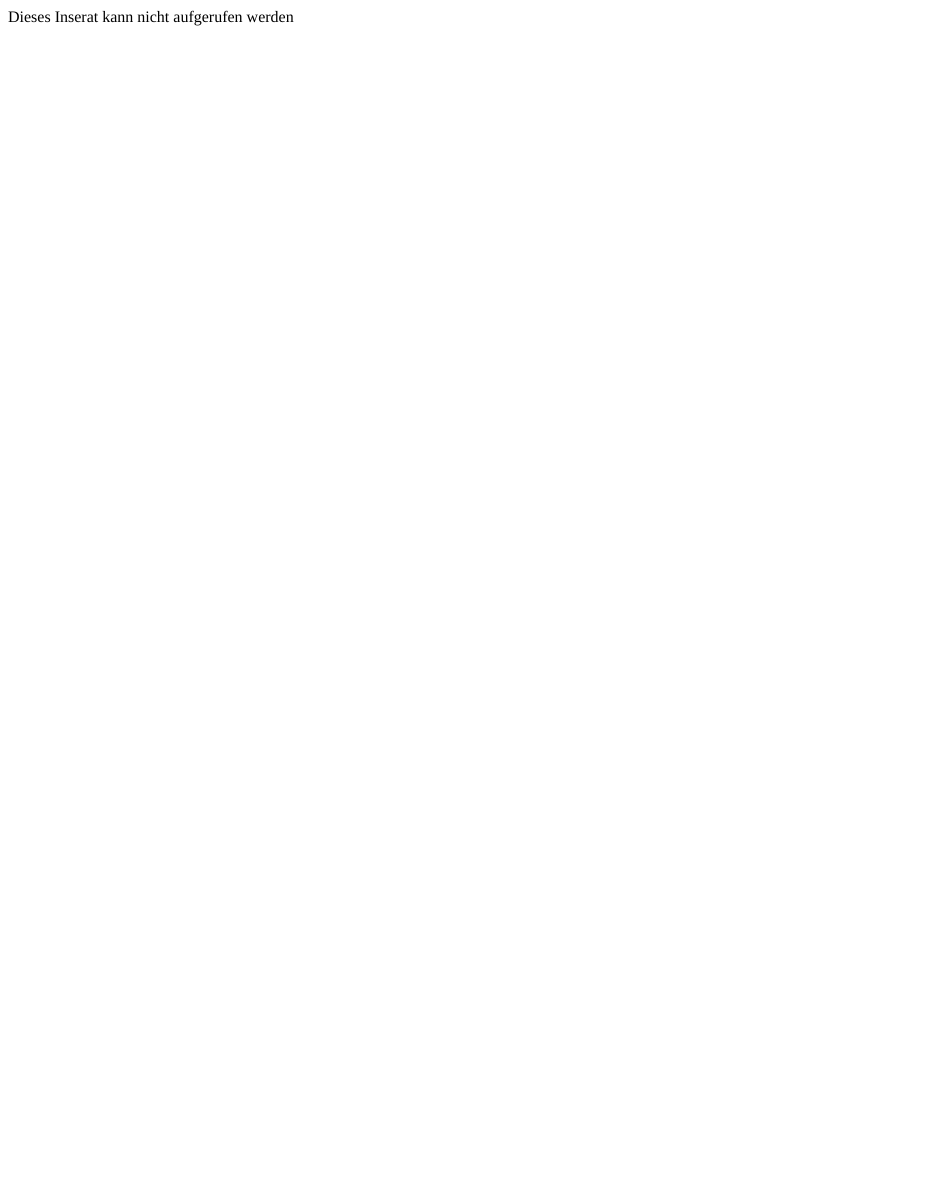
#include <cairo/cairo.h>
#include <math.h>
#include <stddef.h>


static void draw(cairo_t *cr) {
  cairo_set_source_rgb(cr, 1, 1, 1);
  cairo_paint(cr);
  cairo_select_font_face(cr, "Liberation Serif", CAIRO_FONT_SLANT_NORMAL, CAIRO_FONT_WEIGHT_NORMAL);
  cairo_set_font_size(cr, 16);
  cairo_set_source_rgb(cr, 0, 0, 0);
  cairo_move_to(cr, 8, 22);
  cairo_show_text(cr, "Dieses Inserat kann nicht aufgerufen werden");
}

int main(void) {
  cairo_surface_t *surface = cairo_image_surface_create(CAIRO_FORMAT_RGB24, 948, 1180);
  cairo_t *cr = cairo_create(surface);
  cairo_font_options_t *options = cairo_font_options_create();
  cairo_font_options_set_hint_metrics(options, CAIRO_HINT_METRICS_OFF);
  cairo_font_options_set_hint_style(options, CAIRO_HINT_STYLE_NONE);
  cairo_set_font_options(cr, options);
  cairo_set_miter_limit(cr, 4);
  draw(cr);
  cairo_surface_write_to_png(surface, "out.png");
  cairo_font_options_destroy(options);
  cairo_destroy(cr);
  cairo_surface_destroy(surface);
  return 0;
}
